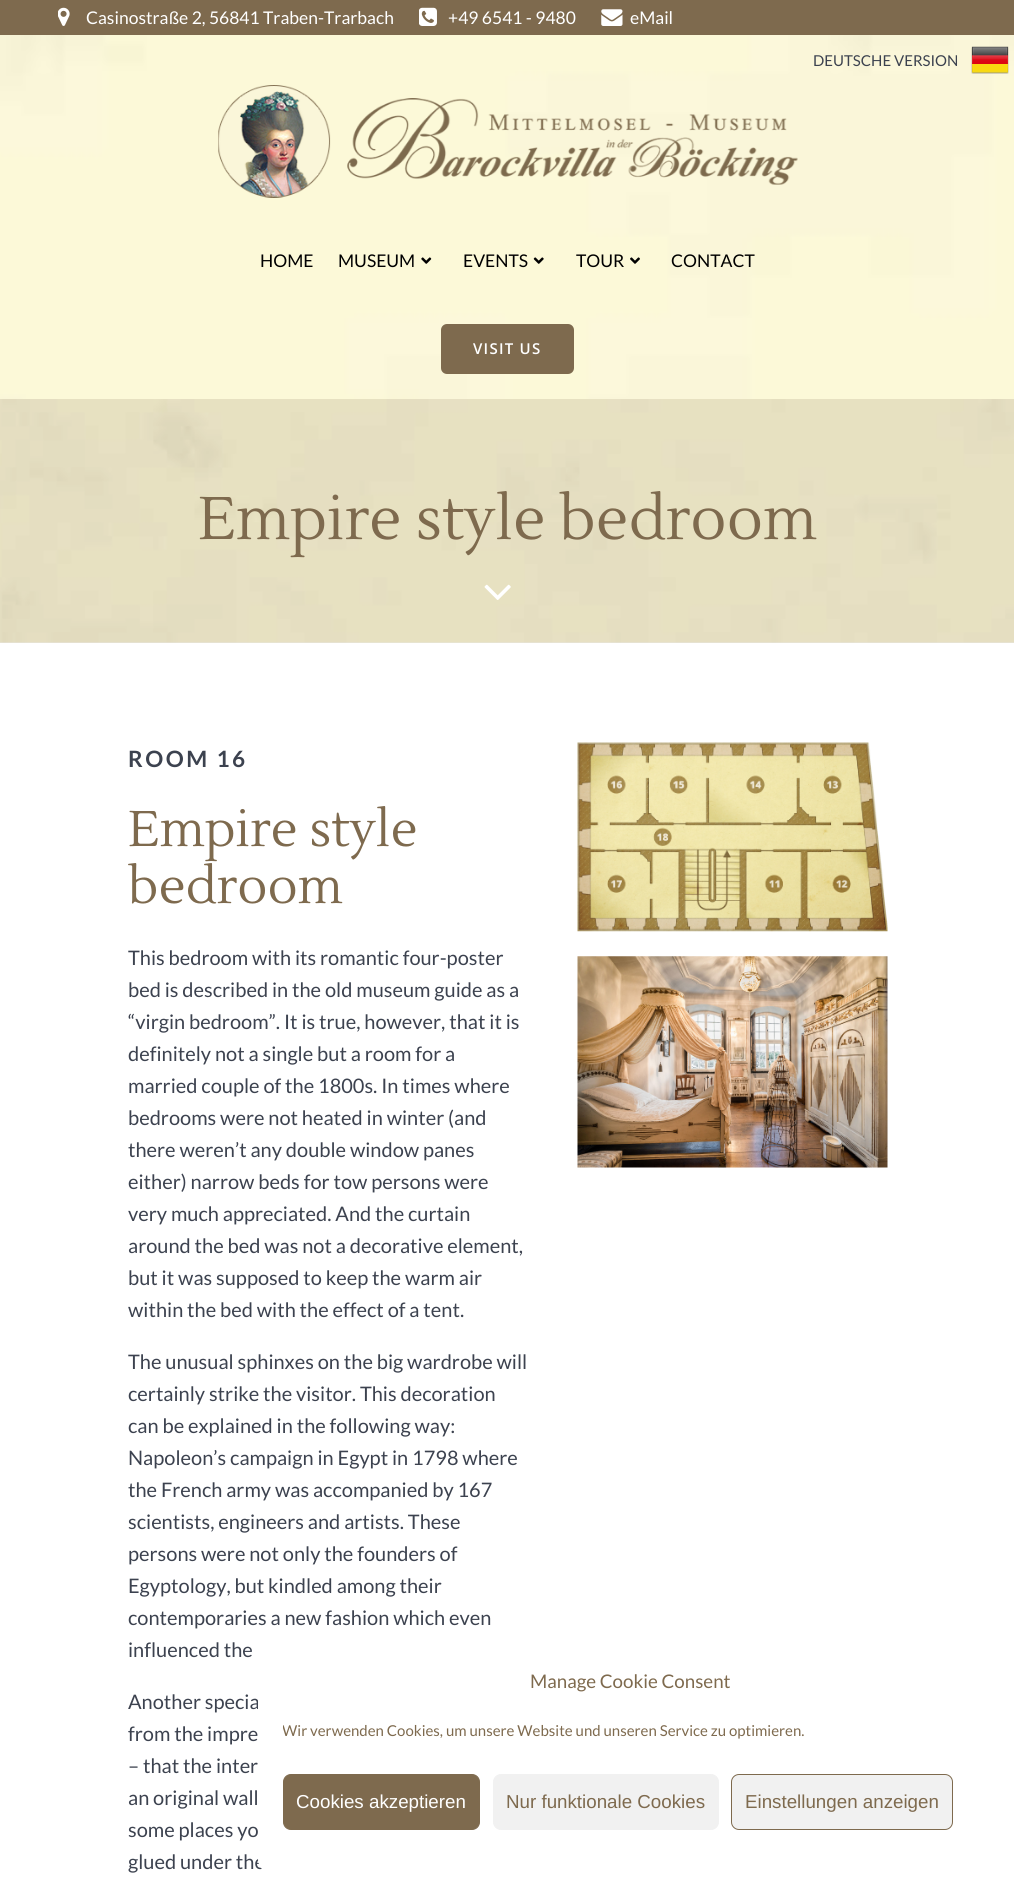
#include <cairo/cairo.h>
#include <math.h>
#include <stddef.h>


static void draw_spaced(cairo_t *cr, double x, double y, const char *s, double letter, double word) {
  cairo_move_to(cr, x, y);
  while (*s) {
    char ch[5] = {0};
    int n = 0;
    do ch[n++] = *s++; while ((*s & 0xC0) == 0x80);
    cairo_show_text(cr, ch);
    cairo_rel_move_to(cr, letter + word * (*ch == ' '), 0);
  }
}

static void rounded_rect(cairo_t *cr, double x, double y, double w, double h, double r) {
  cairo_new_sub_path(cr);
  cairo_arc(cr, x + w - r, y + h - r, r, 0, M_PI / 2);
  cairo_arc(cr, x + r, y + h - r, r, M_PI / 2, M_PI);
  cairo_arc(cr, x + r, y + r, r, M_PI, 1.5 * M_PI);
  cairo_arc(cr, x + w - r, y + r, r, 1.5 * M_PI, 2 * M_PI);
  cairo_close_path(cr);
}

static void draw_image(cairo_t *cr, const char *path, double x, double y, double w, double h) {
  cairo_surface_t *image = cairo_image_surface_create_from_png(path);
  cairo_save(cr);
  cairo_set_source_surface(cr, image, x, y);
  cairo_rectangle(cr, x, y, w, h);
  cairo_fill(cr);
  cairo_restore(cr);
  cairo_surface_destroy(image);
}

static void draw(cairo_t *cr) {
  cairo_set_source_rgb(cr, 1, 1, 1);
  cairo_paint(cr);
  cairo_set_source_rgb(cr, 233 / 255.0, 230 / 255.0, 225 / 255.0);
  cairo_rectangle(cr, 0, 642, 1014, 1);
  cairo_fill(cr);
  cairo_set_source_rgb(cr, 126 / 255.0, 106 / 255.0, 78 / 255.0);
  cairo_rectangle(cr, 0, 0, 1014, 35);
  cairo_fill(cr);
  draw_image(cr, "images/1.png", 58, 7, 12, 19);
  draw_image(cr, "images/2.png", 419, 7, 18, 19);
  draw_image(cr, "images/3.png", 601, 9, 22, 17);
  draw_image(cr, "images/4.png", 0, 35, 1014, 364);
  draw_image(cr, "images/5.png", 971, 46, 38, 28);
  draw_image(cr, "images/6.png", 218, 85, 580, 113);
  draw_image(cr, "images/7.png", 421, 257, 11, 7);
  draw_image(cr, "images/8.png", 533, 257, 11, 7);
  draw_image(cr, "images/9.png", 630, 257, 10, 7);
  rounded_rect(cr, 442.5, 325.5, 130, 47, 4.5);
  cairo_fill_preserve(cr);
  cairo_set_line_width(cr, 3);
  cairo_stroke(cr);
  draw_image(cr, "images/10.png", 0, 399, 1014, 244);
  draw_image(cr, "images/11.png", 484, 584, 27, 16);
  draw_image(cr, "images/12.png", 577, 742, 311, 190);
  draw_image(cr, "images/13.png", 577, 956, 311, 212);
  cairo_select_font_face(cr, "Lato", CAIRO_FONT_SLANT_NORMAL, CAIRO_FONT_WEIGHT_NORMAL);
  cairo_set_font_size(cr, 17.5);
  cairo_set_source_rgb(cr, 1, 1, 1);
  cairo_move_to(cr, 86, 24);
  cairo_show_text(cr, "Casinostraße 2, 56841 Traben-Trarbach");
  cairo_move_to(cr, 448, 24);
  cairo_show_text(cr, "+49 6541 - 9480");
  cairo_move_to(cr, 630, 24);
  cairo_show_text(cr, "eMail");
  cairo_set_font_size(cr, 15);
  cairo_set_source_rgb(cr, 60 / 255.0, 66 / 255.0, 79 / 255.0);
  cairo_move_to(cr, 813, 66);
  cairo_show_text(cr, "DEUTSCHE VERSION");
  cairo_set_font_size(cr, 17.5);
  cairo_set_source_rgb(cr, 0, 0, 0);
  cairo_move_to(cr, 260, 267);
  cairo_show_text(cr, "HOME");
  cairo_move_to(cr, 338, 267);
  cairo_show_text(cr, "MUSEUM");
  cairo_move_to(cr, 463, 267);
  cairo_show_text(cr, "EVENTS");
  cairo_move_to(cr, 576, 267);
  cairo_show_text(cr, "TOUR");
  cairo_move_to(cr, 671, 267);
  cairo_show_text(cr, "CONTACT");
  cairo_select_font_face(cr, "Open Sans SemiBold", CAIRO_FONT_SLANT_NORMAL, CAIRO_FONT_WEIGHT_NORMAL);
  cairo_set_font_size(cr, 15);
  cairo_set_source_rgb(cr, 1, 1, 1);
  draw_spaced(cr, 473, 354, "VISIT US", 1.25, 0);
  cairo_select_font_face(cr, "Lustria", CAIRO_FONT_SLANT_NORMAL, CAIRO_FONT_WEIGHT_NORMAL);
  cairo_set_font_size(cr, 60);
  cairo_set_source_rgb(cr, 126 / 255.0, 106 / 255.0, 78 / 255.0);
  cairo_move_to(cr, 198, 539);
  cairo_show_text(cr, "Empire style bedroom");
  cairo_select_font_face(cr, "Lato", CAIRO_FONT_SLANT_NORMAL, CAIRO_FONT_WEIGHT_BOLD);
  cairo_set_font_size(cr, 22.5);
  cairo_set_source_rgb(cr, 60 / 255.0, 66 / 255.0, 79 / 255.0);
  draw_spaced(cr, 128, 767, "ROOM 16", 2.5, 0);
  cairo_select_font_face(cr, "Lustria", CAIRO_FONT_SLANT_NORMAL, CAIRO_FONT_WEIGHT_NORMAL);
  cairo_set_font_size(cr, 50);
  cairo_set_source_rgb(cr, 126 / 255.0, 106 / 255.0, 78 / 255.0);
  cairo_move_to(cr, 128, 846);
  cairo_show_text(cr, "Empire style");
  cairo_move_to(cr, 128, 903);
  cairo_show_text(cr, "bedroom");
  cairo_select_font_face(cr, "Lato", CAIRO_FONT_SLANT_NORMAL, CAIRO_FONT_WEIGHT_NORMAL);
  cairo_set_font_size(cr, 20);
  cairo_set_source_rgb(cr, 60 / 255.0, 66 / 255.0, 79 / 255.0);
  cairo_move_to(cr, 128, 965);
  cairo_show_text(cr, "This bedroom with its romantic four-poster");
  cairo_move_to(cr, 128, 997);
  cairo_show_text(cr, "bed is described in the old museum guide as a");
  cairo_move_to(cr, 128, 1029);
  cairo_show_text(cr, "“virgin bedroom”. It is true, however, that it is");
  cairo_move_to(cr, 128, 1061);
  cairo_show_text(cr, "definitely not a single but a room for a");
  cairo_move_to(cr, 128, 1093);
  cairo_show_text(cr, "married couple of the 1800s. In times where");
  cairo_move_to(cr, 128, 1125);
  cairo_show_text(cr, "bedrooms were not heated in winter (and");
  cairo_move_to(cr, 128, 1157);
  cairo_show_text(cr, "there weren’t any double window panes");
  cairo_move_to(cr, 128, 1189);
  cairo_show_text(cr, "either) narrow beds for tow persons were");
  cairo_move_to(cr, 128, 1221);
  cairo_show_text(cr, "very much appreciated. And the curtain");
  cairo_move_to(cr, 128, 1253);
  cairo_show_text(cr, "around the bed was not a decorative element,");
  cairo_move_to(cr, 128, 1285);
  cairo_show_text(cr, "but it was supposed to keep the warm air");
  cairo_move_to(cr, 128, 1317);
  cairo_show_text(cr, "within the bed with the effect of a tent.");
  cairo_move_to(cr, 128, 1369);
  cairo_show_text(cr, "The unusual sphinxes on the big wardrobe will");
  cairo_move_to(cr, 128, 1401);
  cairo_show_text(cr, "certainly strike the visitor. This decoration");
  cairo_move_to(cr, 128, 1433);
  cairo_show_text(cr, "can be explained in the following way:");
  cairo_move_to(cr, 128, 1465);
  cairo_show_text(cr, "Napoleon’s campaign in Egypt in 1798 where");
  cairo_move_to(cr, 128, 1497);
  cairo_show_text(cr, "the French army was accompanied by 167");
  cairo_move_to(cr, 128, 1529);
  cairo_show_text(cr, "scientists, engineers and artists. These");
  cairo_move_to(cr, 128, 1561);
  cairo_show_text(cr, "persons were not only the founders of");
  cairo_move_to(cr, 128, 1593);
  cairo_show_text(cr, "Egyptology, but kindled among their");
  cairo_move_to(cr, 128, 1625);
  cairo_show_text(cr, "contemporaries a new fashion which even");
  cairo_move_to(cr, 128, 1657);
  cairo_show_text(cr, "influenced the");
  cairo_move_to(cr, 128, 1709);
  cairo_show_text(cr, "Another specia");
  cairo_move_to(cr, 128, 1741);
  cairo_show_text(cr, "from the impre");
  cairo_move_to(cr, 128, 1773);
  cairo_show_text(cr, "– that the inter");
  cairo_move_to(cr, 128, 1805);
  cairo_show_text(cr, "an original wall");
  cairo_move_to(cr, 128, 1837);
  cairo_show_text(cr, "some places yo");
  cairo_move_to(cr, 128, 1869);
  cairo_show_text(cr, "glued under the");
  cairo_set_source_rgb(cr, 1, 1, 1);
  rounded_rect(cr, 258, 1646, 745, 228, 15);
  cairo_fill(cr);
  cairo_set_font_size(cr, 18.75);
  cairo_set_source_rgb(cr, 126 / 255.0, 106 / 255.0, 78 / 255.0);
  cairo_move_to(cr, 530, 1688);
  cairo_show_text(cr, "Manage Cookie Consent");
  cairo_save(cr);
  cairo_rectangle(cr, 283, 1720, 695, 29);
  cairo_clip(cr);
  cairo_set_font_size(cr, 15);
  cairo_move_to(cr, 282, 1736);
  cairo_show_text(cr, "Wir verwenden Cookies, um unsere Website und unseren Service zu optimieren.");
  cairo_restore(cr);
  rounded_rect(cr, 283.5, 1774.5, 196, 55, 7.5);
  cairo_fill_preserve(cr);
  cairo_set_line_width(cr, 1);
  cairo_stroke(cr);
  cairo_select_font_face(cr, "Liberation Sans", CAIRO_FONT_SLANT_NORMAL, CAIRO_FONT_WEIGHT_NORMAL);
  cairo_set_source_rgb(cr, 1, 1, 1);
  cairo_move_to(cr, 296, 1808);
  cairo_show_text(cr, "Cookies akzeptieren");
  cairo_set_source_rgb(cr, 241 / 255.0, 241 / 255.0, 241 / 255.0);
  rounded_rect(cr, 493.5, 1774.5, 225, 55, 7.5);
  cairo_fill_preserve(cr);
  cairo_stroke(cr);
  cairo_set_source_rgb(cr, 126 / 255.0, 106 / 255.0, 78 / 255.0);
  cairo_move_to(cr, 506, 1808);
  cairo_show_text(cr, "Nur funktionale Cookies");
  cairo_set_source_rgb(cr, 241 / 255.0, 241 / 255.0, 241 / 255.0);
  rounded_rect(cr, 731.5, 1774.5, 221, 55, 7.5);
  cairo_fill_preserve(cr);
  cairo_set_source_rgb(cr, 126 / 255.0, 106 / 255.0, 78 / 255.0);
  cairo_stroke(cr);
  cairo_move_to(cr, 745, 1808);
  cairo_show_text(cr, "Einstellungen anzeigen");
}

int main(void) {
  cairo_surface_t *surface = cairo_image_surface_create(CAIRO_FORMAT_RGB24, 1014, 1886);
  cairo_t *cr = cairo_create(surface);
  cairo_font_options_t *options = cairo_font_options_create();
  cairo_font_options_set_hint_metrics(options, CAIRO_HINT_METRICS_OFF);
  cairo_font_options_set_hint_style(options, CAIRO_HINT_STYLE_NONE);
  cairo_set_font_options(cr, options);
  cairo_set_miter_limit(cr, 4);
  draw(cr);
  cairo_surface_write_to_png(surface, "out.png");
  cairo_font_options_destroy(options);
  cairo_destroy(cr);
  cairo_surface_destroy(surface);
  return 0;
}
